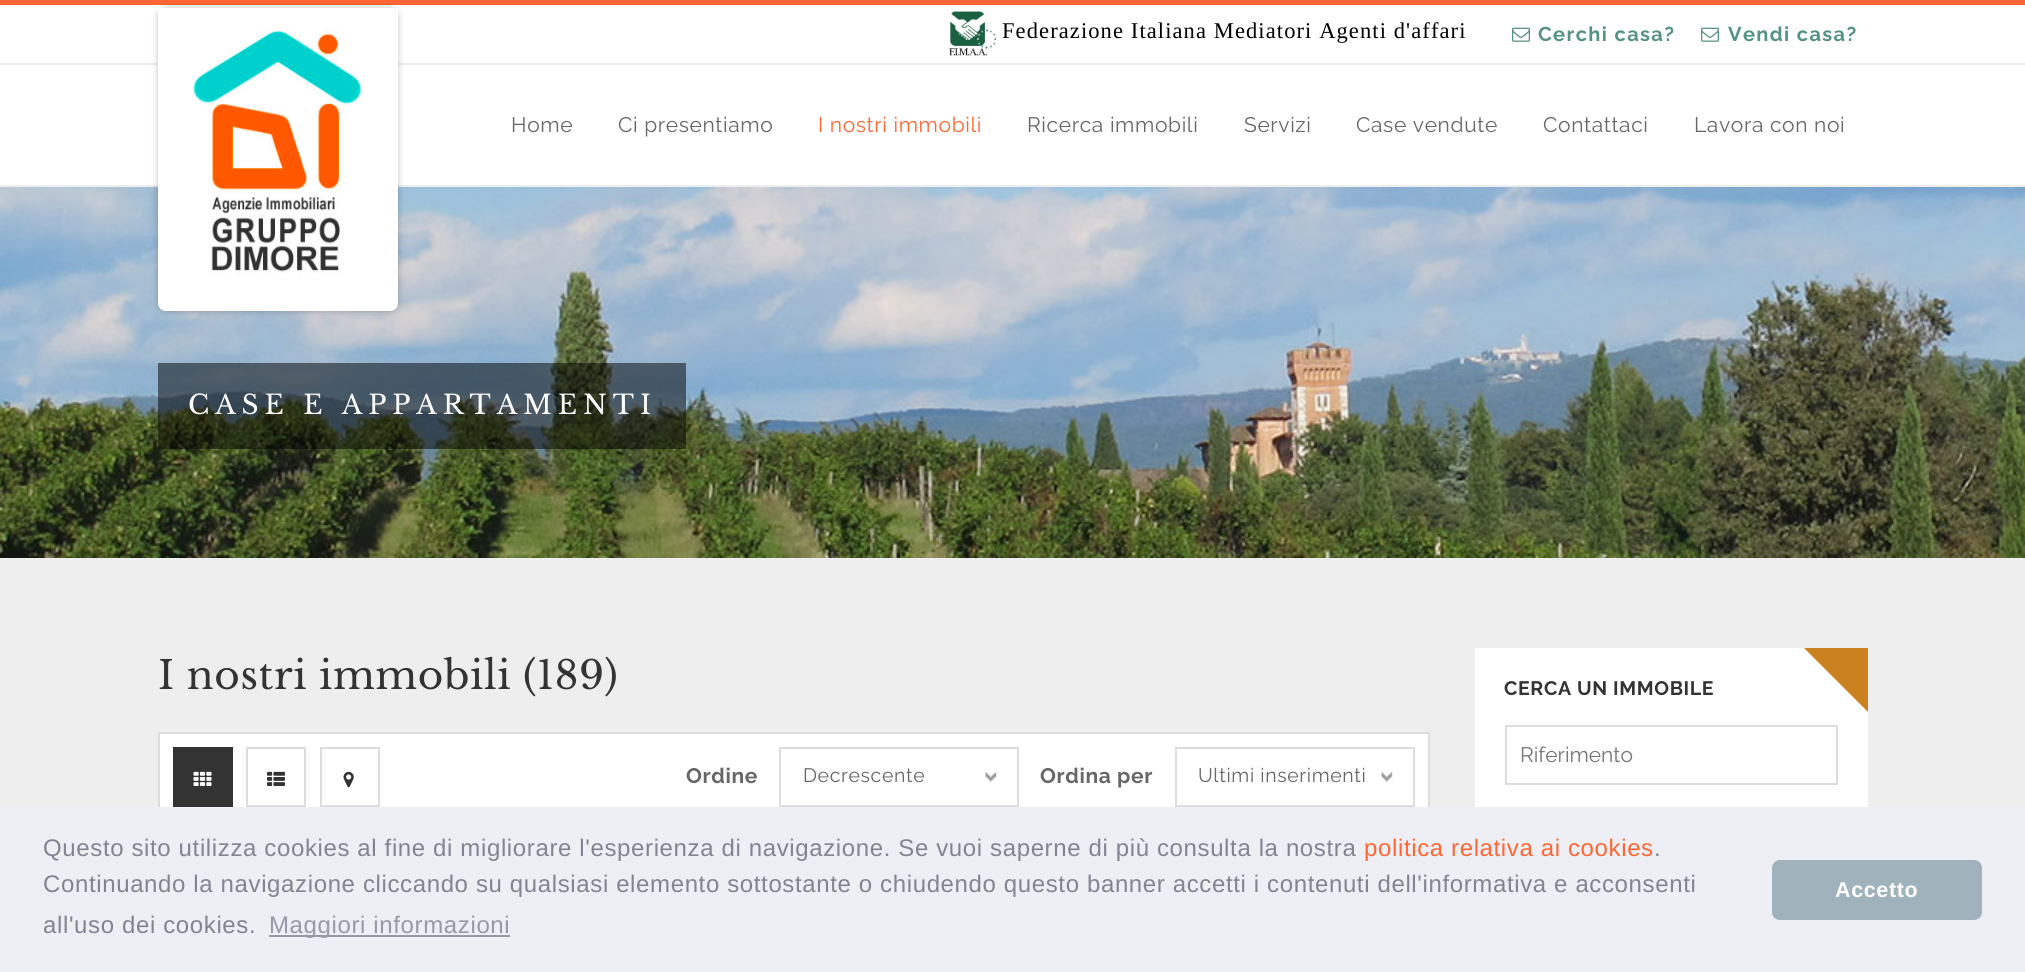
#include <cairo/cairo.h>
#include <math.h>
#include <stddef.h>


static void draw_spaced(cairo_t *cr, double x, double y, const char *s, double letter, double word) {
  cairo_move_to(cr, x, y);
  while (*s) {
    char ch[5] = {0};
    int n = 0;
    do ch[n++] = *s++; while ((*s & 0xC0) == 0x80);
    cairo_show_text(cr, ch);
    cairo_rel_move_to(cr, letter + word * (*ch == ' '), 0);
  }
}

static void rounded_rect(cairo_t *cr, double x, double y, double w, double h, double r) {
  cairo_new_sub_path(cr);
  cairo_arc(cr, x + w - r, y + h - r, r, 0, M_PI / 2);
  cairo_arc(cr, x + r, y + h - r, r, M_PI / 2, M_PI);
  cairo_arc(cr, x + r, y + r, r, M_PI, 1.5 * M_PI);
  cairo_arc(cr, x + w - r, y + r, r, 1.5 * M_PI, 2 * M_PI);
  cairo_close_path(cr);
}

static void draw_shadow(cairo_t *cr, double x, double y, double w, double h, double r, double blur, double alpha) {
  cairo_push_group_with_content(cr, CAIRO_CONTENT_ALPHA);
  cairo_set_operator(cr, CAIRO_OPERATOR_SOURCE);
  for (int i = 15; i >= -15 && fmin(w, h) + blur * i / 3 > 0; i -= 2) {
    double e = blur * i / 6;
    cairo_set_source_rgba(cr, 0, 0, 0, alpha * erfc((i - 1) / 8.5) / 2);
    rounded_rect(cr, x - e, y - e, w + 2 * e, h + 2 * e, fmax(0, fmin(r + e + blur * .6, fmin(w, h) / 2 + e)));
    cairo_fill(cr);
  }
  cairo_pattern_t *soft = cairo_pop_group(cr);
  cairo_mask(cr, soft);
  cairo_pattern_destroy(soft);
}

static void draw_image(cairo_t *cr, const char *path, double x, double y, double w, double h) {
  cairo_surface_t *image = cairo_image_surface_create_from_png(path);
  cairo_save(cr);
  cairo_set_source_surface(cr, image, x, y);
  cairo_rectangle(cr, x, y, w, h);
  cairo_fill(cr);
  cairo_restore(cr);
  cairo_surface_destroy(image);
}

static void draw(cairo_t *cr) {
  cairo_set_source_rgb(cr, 1, 1, 1);
  cairo_paint(cr);
  cairo_set_source_rgb(cr, 1, 102 / 255.0, 51 / 255.0);
  cairo_rectangle(cr, 0, 0, 2025, 5);
  cairo_fill(cr);
  draw_image(cr, "images/1.png", 949, 11, 47, 45);
  draw_image(cr, "images/2.png", 1512, 27, 18, 15);
  draw_image(cr, "images/2.png", 1701, 27, 18, 15);
  cairo_set_source_rgb(cr, 238 / 255.0, 238 / 255.0, 238 / 255.0);
  cairo_rectangle(cr, 0, 63, 2025, 2);
  cairo_fill(cr);
  cairo_rectangle(cr, 0, 185, 2025, 2);
  cairo_fill(cr);
  draw_image(cr, "images/4.png", 0, 187, 2025, 371);
  cairo_set_source_rgb(cr, 0, 0, 0);
  draw_shadow(cr, 161, 11, 234, 297, 5, 4.5, 0.5);
  cairo_set_source_rgb(cr, 1, 1, 1);
  cairo_new_path(cr);
  cairo_move_to(cr, 158, 8);
  cairo_line_to(cr, 398, 8);
  cairo_line_to(cr, 398, 303);
  cairo_curve_to(cr, 398, 307.5, 394.5, 311, 390, 311);
  cairo_line_to(cr, 166, 311);
  cairo_curve_to(cr, 161.5, 311, 158, 307.5, 158, 303);
  cairo_close_path(cr);
  cairo_fill(cr);
  draw_image(cr, "images/3.png", 192, 28, 173, 247);
  cairo_set_source_rgb(cr, 238 / 255.0, 238 / 255.0, 238 / 255.0);
  cairo_rectangle(cr, 0, 558, 2025, 249);
  cairo_fill(cr);
  cairo_set_source_rgba(cr, 0, 0, 0, 0.5);
  cairo_rectangle(cr, 158, 363, 528, 86);
  cairo_fill(cr);
  cairo_set_source_rgb(cr, 1, 1, 1);
  cairo_rectangle(cr, 160, 734, 1268, 73);
  cairo_fill(cr);
  cairo_rectangle(cr, 159, 733, 1270, 88);
  cairo_set_source_rgb(cr, 221 / 255.0, 221 / 255.0, 221 / 255.0);
  cairo_stroke(cr);
  cairo_set_source_rgb(cr, 51 / 255.0, 51 / 255.0, 51 / 255.0);
  cairo_rectangle(cr, 173, 747, 60, 60);
  cairo_fill(cr);
  draw_image(cr, "images/5.png", 193, 771, 19, 15);
  cairo_rectangle(cr, 247, 748, 58, 58);
  cairo_set_source_rgb(cr, 221 / 255.0, 221 / 255.0, 221 / 255.0);
  cairo_stroke(cr);
  draw_image(cr, "images/6.png", 267, 771, 18, 15);
  cairo_rectangle(cr, 321, 748, 58, 58);
  cairo_stroke(cr);
  draw_image(cr, "images/7.png", 343, 771, 11, 17);
  cairo_rectangle(cr, 780, 748, 238, 58);
  cairo_stroke(cr);
  draw_image(cr, "images/8.png", 985, 772, 12, 10);
  cairo_rectangle(cr, 1176, 748, 238, 58);
  cairo_stroke(cr);
  draw_image(cr, "images/9.png", 1381, 772, 12, 10);
  cairo_set_source_rgb(cr, 1, 1, 1);
  cairo_rectangle(cr, 1475, 648, 393, 159);
  cairo_fill(cr);
  cairo_save(cr);
  cairo_rectangle(cr, 1475, 648, 393, 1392);
  cairo_clip(cr);
  cairo_set_source_rgb(cr, 204 / 255.0, 129 / 255.0, 32 / 255.0);
  cairo_new_path(cr);
  cairo_move_to(cr, 1868, 584);
  cairo_line_to(cr, 1931, 648);
  cairo_line_to(cr, 1868, 712);
  cairo_line_to(cr, 1804, 648);
  cairo_close_path(cr);
  cairo_fill(cr);
  cairo_restore(cr);
  cairo_rectangle(cr, 1506, 726, 331, 58);
  cairo_set_source_rgb(cr, 221 / 255.0, 221 / 255.0, 221 / 255.0);
  cairo_stroke(cr);
  cairo_set_source_rgb(cr, 237 / 255.0, 239 / 255.0, 245 / 255.0);
  cairo_rectangle(cr, 0, 807, 2025, 165);
  cairo_fill(cr);
  cairo_set_source_rgb(cr, 152 / 255.0, 153 / 255.0, 165 / 255.0);
  cairo_rectangle(cr, 269, 935, 241, 2);
  cairo_fill(cr);
  cairo_set_source_rgb(cr, 160 / 255.0, 179 / 255.0, 188 / 255.0);
  rounded_rect(cr, 1772, 860, 210, 60, 8);
  cairo_fill(cr);
  cairo_select_font_face(cr, "Liberation Serif", CAIRO_FONT_SLANT_NORMAL, CAIRO_FONT_WEIGHT_NORMAL);
  cairo_set_font_size(cr, 22.5);
  cairo_set_source_rgb(cr, 0, 0, 0);
  draw_spaced(cr, 1002, 38, "Federazione Italiana Mediatori Agenti d'affari", 1.1, 0);
  cairo_select_font_face(cr, "Raleway", CAIRO_FONT_SLANT_NORMAL, CAIRO_FONT_WEIGHT_BOLD);
  cairo_set_font_size(cr, 20);
  cairo_set_source_rgb(cr, 84 / 255.0, 146 / 255.0, 132 / 255.0);
  draw_spaced(cr, 1538, 41, "Cerchi casa?", 1.4, 0);
  draw_spaced(cr, 1728, 41, "Vendi casa?", 1.4, 0);
  cairo_select_font_face(cr, "Raleway", CAIRO_FONT_SLANT_NORMAL, CAIRO_FONT_WEIGHT_NORMAL);
  cairo_set_font_size(cr, 21);
  cairo_set_source_rgb(cr, 102 / 255.0, 102 / 255.0, 102 / 255.0);
  draw_spaced(cr, 511, 132, "Home", 0.63, 0);
  draw_spaced(cr, 618, 132, "Ci presentiamo", 0.63, 0);
  cairo_set_source_rgb(cr, 1, 102 / 255.0, 51 / 255.0);
  draw_spaced(cr, 818, 132, "I nostri immobili", 0.63, 0);
  cairo_set_source_rgb(cr, 102 / 255.0, 102 / 255.0, 102 / 255.0);
  draw_spaced(cr, 1027, 132, "Ricerca immobili", 0.63, 0);
  draw_spaced(cr, 1244, 132, "Servizi", 0.63, 0);
  draw_spaced(cr, 1356, 132, "Case vendute", 0.63, 0);
  draw_spaced(cr, 1543, 132, "Contattaci", 0.63, 0);
  draw_spaced(cr, 1694, 132, "Lavora con noi", 0.63, 0);
  cairo_select_font_face(cr, "Libre Baskerville", CAIRO_FONT_SLANT_NORMAL, CAIRO_FONT_WEIGHT_NORMAL);
  cairo_set_font_size(cr, 26.5);
  cairo_set_source_rgb(cr, 1, 1, 1);
  draw_spaced(cr, 188, 414, "CASE E APPARTAMENTI", 5.9, 0);
  cairo_set_font_size(cr, 39);
  cairo_set_source_rgb(cr, 51 / 255.0, 51 / 255.0, 51 / 255.0);
  draw_spaced(cr, 158, 689, "I nostri immobili (189)", 0.63, 0);
  cairo_select_font_face(cr, "Raleway", CAIRO_FONT_SLANT_NORMAL, CAIRO_FONT_WEIGHT_BOLD);
  cairo_set_font_size(cr, 21);
  cairo_set_source_rgb(cr, 102 / 255.0, 102 / 255.0, 102 / 255.0);
  draw_spaced(cr, 686, 783, "Ordine", 0.63, 0);
  cairo_select_font_face(cr, "Raleway", CAIRO_FONT_SLANT_NORMAL, CAIRO_FONT_WEIGHT_NORMAL);
  cairo_set_font_size(cr, 19.5);
  draw_spaced(cr, 803, 782, "Decrescente", 0.63, 0);
  cairo_select_font_face(cr, "Raleway", CAIRO_FONT_SLANT_NORMAL, CAIRO_FONT_WEIGHT_BOLD);
  cairo_set_font_size(cr, 21);
  draw_spaced(cr, 1040, 783, "Ordina per", 0.63, 0);
  cairo_select_font_face(cr, "Raleway", CAIRO_FONT_SLANT_NORMAL, CAIRO_FONT_WEIGHT_NORMAL);
  cairo_set_font_size(cr, 19.5);
  draw_spaced(cr, 1198, 782, "Ultimi inserimenti", 0.63, 0);
  cairo_select_font_face(cr, "Raleway", CAIRO_FONT_SLANT_NORMAL, CAIRO_FONT_WEIGHT_BOLD);
  cairo_set_source_rgb(cr, 51 / 255.0, 51 / 255.0, 51 / 255.0);
  draw_spaced(cr, 1504, 695, "CERCA UN IMMOBILE", 0.63, 0);
  cairo_select_font_face(cr, "Raleway", CAIRO_FONT_SLANT_NORMAL, CAIRO_FONT_WEIGHT_NORMAL);
  cairo_set_font_size(cr, 21);
  cairo_set_source_rgb(cr, 117 / 255.0, 117 / 255.0, 117 / 255.0);
  cairo_move_to(cr, 1520, 762);
  cairo_show_text(cr, "Riferimento");
  cairo_select_font_face(cr, "Liberation Sans", CAIRO_FONT_SLANT_NORMAL, CAIRO_FONT_WEIGHT_NORMAL);
  cairo_set_font_size(cr, 24);
  cairo_set_source_rgb(cr, 131 / 255.0, 131 / 255.0, 145 / 255.0);
  draw_spaced(cr, 43, 856, "Questo sito utilizza cookies al fine di migliorare l'esperienza di navigazione. Se vuoi saperne di più consulta la nostra", 0.63, 0);
  cairo_set_source_rgb(cr, 1, 102 / 255.0, 51 / 255.0);
  draw_spaced(cr, 1364, 856, "politica relativa ai cookies", 0.63, 0);
  cairo_set_source_rgb(cr, 131 / 255.0, 131 / 255.0, 145 / 255.0);
  draw_spaced(cr, 1654, 856, ".", 0.63, 0);
  draw_spaced(cr, 43, 892, "Continuando la navigazione cliccando su qualsiasi elemento sottostante o chiudendo questo banner accetti i contenuti dell'informativa e acconsenti", 0.63, 0);
  draw_spaced(cr, 43, 933, "all'uso dei cookies.", 0.63, 0);
  cairo_set_source_rgb(cr, 152 / 255.0, 153 / 255.0, 165 / 255.0);
  draw_spaced(cr, 269, 933, "Maggiori informazioni", 0.63, 0);
  cairo_select_font_face(cr, "Liberation Sans", CAIRO_FONT_SLANT_NORMAL, CAIRO_FONT_WEIGHT_BOLD);
  cairo_set_font_size(cr, 21.5);
  cairo_set_source_rgb(cr, 1, 1, 1);
  draw_spaced(cr, 1835, 897, "Accetto", 0.63, 0);
}

int main(void) {
  cairo_surface_t *surface = cairo_image_surface_create(CAIRO_FORMAT_RGB24, 2025, 972);
  cairo_t *cr = cairo_create(surface);
  cairo_font_options_t *options = cairo_font_options_create();
  cairo_font_options_set_hint_metrics(options, CAIRO_HINT_METRICS_OFF);
  cairo_font_options_set_hint_style(options, CAIRO_HINT_STYLE_NONE);
  cairo_set_font_options(cr, options);
  cairo_set_miter_limit(cr, 4);
  draw(cr);
  cairo_surface_write_to_png(surface, "out.png");
  cairo_font_options_destroy(options);
  cairo_destroy(cr);
  cairo_surface_destroy(surface);
  return 0;
}
